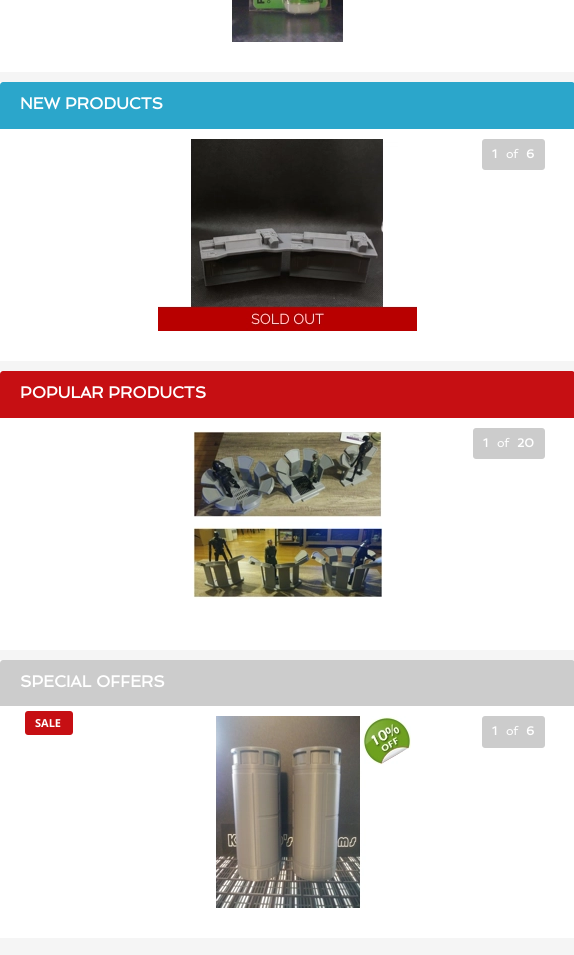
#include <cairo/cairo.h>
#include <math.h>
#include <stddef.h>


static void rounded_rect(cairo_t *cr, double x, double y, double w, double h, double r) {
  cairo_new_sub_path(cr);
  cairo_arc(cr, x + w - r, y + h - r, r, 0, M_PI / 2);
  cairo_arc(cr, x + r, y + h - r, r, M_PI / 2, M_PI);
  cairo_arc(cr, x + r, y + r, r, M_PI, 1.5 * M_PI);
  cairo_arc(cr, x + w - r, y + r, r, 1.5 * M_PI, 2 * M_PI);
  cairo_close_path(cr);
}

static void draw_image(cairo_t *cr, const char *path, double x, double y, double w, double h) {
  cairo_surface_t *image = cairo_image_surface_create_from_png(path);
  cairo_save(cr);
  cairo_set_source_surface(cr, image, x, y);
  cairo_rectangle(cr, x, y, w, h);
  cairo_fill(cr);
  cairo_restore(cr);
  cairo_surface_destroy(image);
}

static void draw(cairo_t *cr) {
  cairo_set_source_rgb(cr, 245 / 255.0, 245 / 255.0, 245 / 255.0);
  cairo_paint(cr);
  cairo_set_source_rgb(cr, 1, 1, 1);
  cairo_rectangle(cr, 0, 0, 574, 72);
  cairo_fill(cr);
  draw_image(cr, "images/1.png", 232, 0, 111, 42);
  cairo_rectangle(cr, 0, 82, 574, 279);
  cairo_fill(cr);
  cairo_set_source_rgb(cr, 43 / 255.0, 166 / 255.0, 203 / 255.0);
  cairo_new_path(cr);
  cairo_move_to(cr, 3, 82);
  cairo_line_to(cr, 572, 82);
  cairo_curve_to(cr, 573.5, 82, 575, 83.5, 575, 85);
  cairo_line_to(cr, 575, 129);
  cairo_line_to(cr, 0, 129);
  cairo_line_to(cr, 0, 85);
  cairo_curve_to(cr, 0, 83.5, 1.5, 82, 3, 82);
  cairo_close_path(cr);
  cairo_fill(cr);
  draw_image(cr, "images/2.png", 158, 139, 259, 192);
  cairo_set_source_rgb(cr, 204 / 255.0, 204 / 255.0, 204 / 255.0);
  rounded_rect(cr, 482, 139, 63, 31, 3);
  cairo_fill(cr);
  cairo_set_source_rgb(cr, 1, 1, 1);
  cairo_rectangle(cr, 0, 371, 574, 279);
  cairo_fill(cr);
  cairo_set_source_rgb(cr, 198 / 255.0, 15 / 255.0, 19 / 255.0);
  cairo_new_path(cr);
  cairo_move_to(cr, 3, 371);
  cairo_line_to(cr, 572, 371);
  cairo_curve_to(cr, 573.5, 371, 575, 372.5, 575, 374);
  cairo_line_to(cr, 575, 418);
  cairo_line_to(cr, 0, 418);
  cairo_line_to(cr, 0, 374);
  cairo_curve_to(cr, 0, 372.5, 1.5, 371, 3, 371);
  cairo_close_path(cr);
  cairo_fill(cr);
  draw_image(cr, "images/3.png", 193, 431, 190, 168);
  cairo_set_source_rgb(cr, 204 / 255.0, 204 / 255.0, 204 / 255.0);
  rounded_rect(cr, 473, 428, 72, 31, 3);
  cairo_fill(cr);
  cairo_set_source_rgb(cr, 1, 1, 1);
  cairo_rectangle(cr, 0, 660, 574, 278);
  cairo_fill(cr);
  cairo_set_source_rgb(cr, 204 / 255.0, 204 / 255.0, 204 / 255.0);
  cairo_new_path(cr);
  cairo_move_to(cr, 3, 660);
  cairo_line_to(cr, 572, 660);
  cairo_curve_to(cr, 573.5, 660, 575, 661.5, 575, 663);
  cairo_line_to(cr, 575, 706);
  cairo_line_to(cr, 0, 706);
  cairo_line_to(cr, 0, 663);
  cairo_curve_to(cr, 0, 661.5, 1.5, 660, 3, 660);
  cairo_close_path(cr);
  cairo_fill(cr);
  cairo_set_source_rgb(cr, 198 / 255.0, 15 / 255.0, 19 / 255.0);
  rounded_rect(cr, 25, 711, 48, 24, 3);
  cairo_fill(cr);
  draw_image(cr, "images/4.png", 216, 716, 195, 192);
  cairo_set_source_rgb(cr, 204 / 255.0, 204 / 255.0, 204 / 255.0);
  rounded_rect(cr, 482, 716, 63, 32, 3);
  cairo_fill(cr);
  cairo_select_font_face(cr, "Spinnaker", CAIRO_FONT_SLANT_NORMAL, CAIRO_FONT_WEIGHT_BOLD);
  cairo_set_font_size(cr, 16.25);
  cairo_set_source_rgb(cr, 1, 1, 1);
  cairo_move_to(cr, 20, 109);
  cairo_show_text(cr, "NEW PRODUCTS");
  cairo_set_font_size(cr, 12);
  cairo_move_to(cr, 492, 158);
  cairo_show_text(cr, "1");
  cairo_select_font_face(cr, "Spinnaker", CAIRO_FONT_SLANT_NORMAL, CAIRO_FONT_WEIGHT_NORMAL);
  cairo_move_to(cr, 506, 158);
  cairo_show_text(cr, "of");
  cairo_select_font_face(cr, "Spinnaker", CAIRO_FONT_SLANT_NORMAL, CAIRO_FONT_WEIGHT_BOLD);
  cairo_move_to(cr, 526, 158);
  cairo_show_text(cr, "6");
  cairo_set_font_size(cr, 16.25);
  cairo_move_to(cr, 20, 398);
  cairo_show_text(cr, "POPULAR PRODUCTS");
  cairo_set_font_size(cr, 12);
  cairo_move_to(cr, 483, 447);
  cairo_show_text(cr, "1");
  cairo_select_font_face(cr, "Spinnaker", CAIRO_FONT_SLANT_NORMAL, CAIRO_FONT_WEIGHT_NORMAL);
  cairo_move_to(cr, 497, 447);
  cairo_show_text(cr, "of");
  cairo_select_font_face(cr, "Spinnaker", CAIRO_FONT_SLANT_NORMAL, CAIRO_FONT_WEIGHT_BOLD);
  cairo_move_to(cr, 517, 447);
  cairo_show_text(cr, "20");
  cairo_set_font_size(cr, 16.25);
  cairo_move_to(cr, 20, 687);
  cairo_show_text(cr, "SPECIAL OFFERS");
  cairo_select_font_face(cr, "Open Sans", CAIRO_FONT_SLANT_NORMAL, CAIRO_FONT_WEIGHT_BOLD);
  cairo_set_font_size(cr, 11);
  cairo_move_to(cr, 35, 727);
  cairo_show_text(cr, "SALE");
  cairo_select_font_face(cr, "Spinnaker", CAIRO_FONT_SLANT_NORMAL, CAIRO_FONT_WEIGHT_BOLD);
  cairo_set_font_size(cr, 12);
  cairo_move_to(cr, 492, 735);
  cairo_show_text(cr, "1");
  cairo_select_font_face(cr, "Spinnaker", CAIRO_FONT_SLANT_NORMAL, CAIRO_FONT_WEIGHT_NORMAL);
  cairo_move_to(cr, 506, 735);
  cairo_show_text(cr, "of");
  cairo_select_font_face(cr, "Spinnaker", CAIRO_FONT_SLANT_NORMAL, CAIRO_FONT_WEIGHT_BOLD);
  cairo_move_to(cr, 526, 735);
  cairo_show_text(cr, "6");
}

int main(void) {
  cairo_surface_t *surface = cairo_image_surface_create(CAIRO_FORMAT_RGB24, 574, 955);
  cairo_t *cr = cairo_create(surface);
  cairo_font_options_t *options = cairo_font_options_create();
  cairo_font_options_set_hint_metrics(options, CAIRO_HINT_METRICS_OFF);
  cairo_font_options_set_hint_style(options, CAIRO_HINT_STYLE_NONE);
  cairo_set_font_options(cr, options);
  cairo_set_miter_limit(cr, 4);
  draw(cr);
  cairo_surface_write_to_png(surface, "out.png");
  cairo_font_options_destroy(options);
  cairo_destroy(cr);
  cairo_surface_destroy(surface);
  return 0;
}
